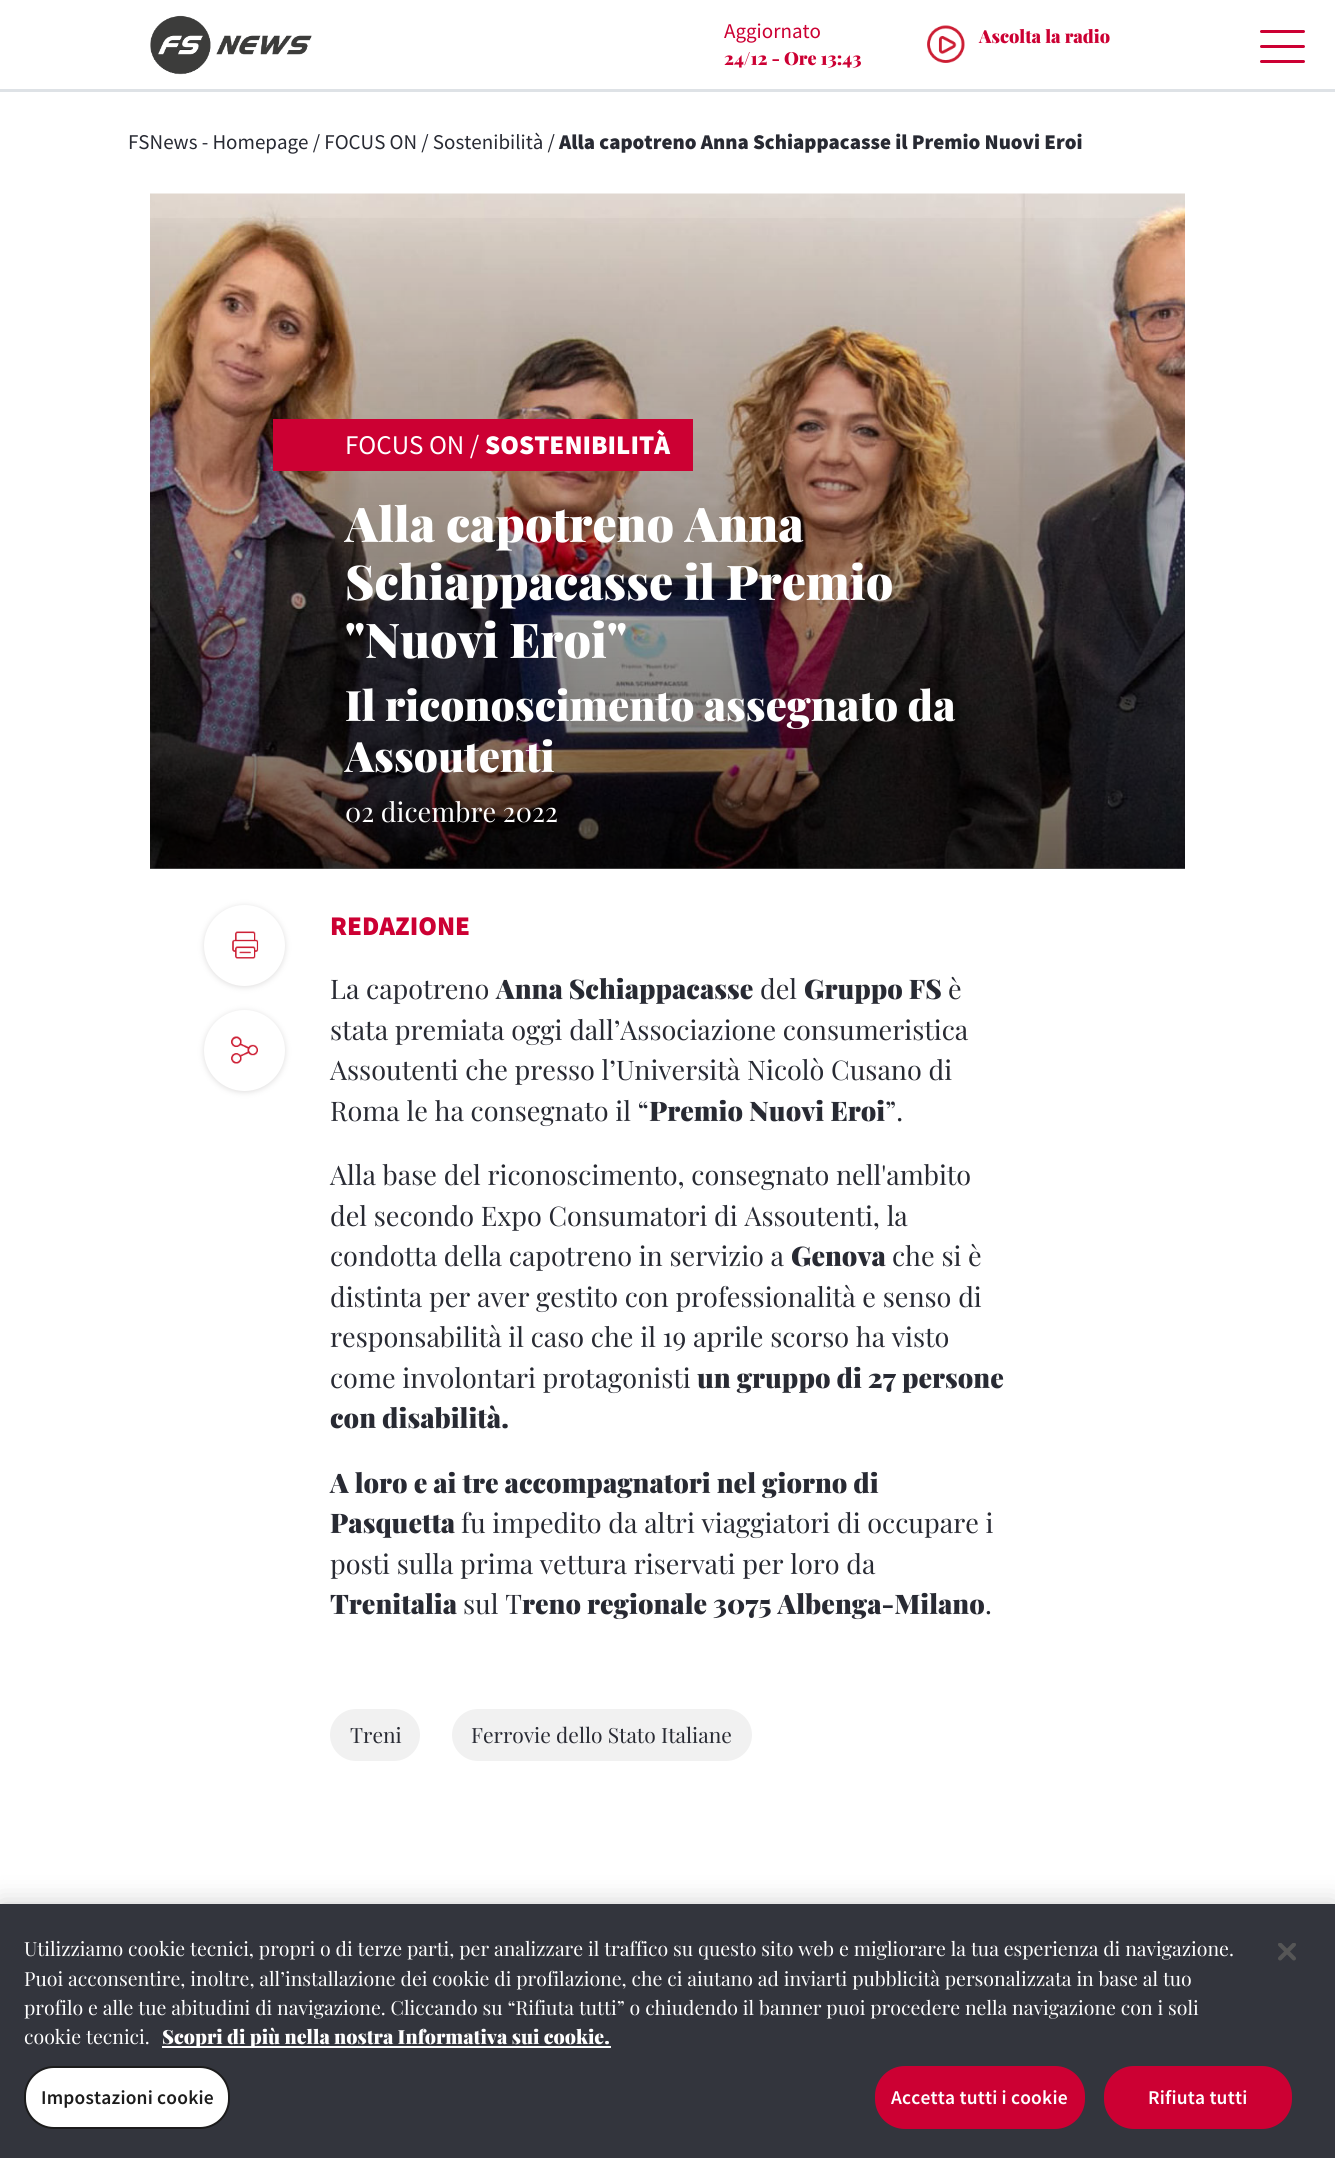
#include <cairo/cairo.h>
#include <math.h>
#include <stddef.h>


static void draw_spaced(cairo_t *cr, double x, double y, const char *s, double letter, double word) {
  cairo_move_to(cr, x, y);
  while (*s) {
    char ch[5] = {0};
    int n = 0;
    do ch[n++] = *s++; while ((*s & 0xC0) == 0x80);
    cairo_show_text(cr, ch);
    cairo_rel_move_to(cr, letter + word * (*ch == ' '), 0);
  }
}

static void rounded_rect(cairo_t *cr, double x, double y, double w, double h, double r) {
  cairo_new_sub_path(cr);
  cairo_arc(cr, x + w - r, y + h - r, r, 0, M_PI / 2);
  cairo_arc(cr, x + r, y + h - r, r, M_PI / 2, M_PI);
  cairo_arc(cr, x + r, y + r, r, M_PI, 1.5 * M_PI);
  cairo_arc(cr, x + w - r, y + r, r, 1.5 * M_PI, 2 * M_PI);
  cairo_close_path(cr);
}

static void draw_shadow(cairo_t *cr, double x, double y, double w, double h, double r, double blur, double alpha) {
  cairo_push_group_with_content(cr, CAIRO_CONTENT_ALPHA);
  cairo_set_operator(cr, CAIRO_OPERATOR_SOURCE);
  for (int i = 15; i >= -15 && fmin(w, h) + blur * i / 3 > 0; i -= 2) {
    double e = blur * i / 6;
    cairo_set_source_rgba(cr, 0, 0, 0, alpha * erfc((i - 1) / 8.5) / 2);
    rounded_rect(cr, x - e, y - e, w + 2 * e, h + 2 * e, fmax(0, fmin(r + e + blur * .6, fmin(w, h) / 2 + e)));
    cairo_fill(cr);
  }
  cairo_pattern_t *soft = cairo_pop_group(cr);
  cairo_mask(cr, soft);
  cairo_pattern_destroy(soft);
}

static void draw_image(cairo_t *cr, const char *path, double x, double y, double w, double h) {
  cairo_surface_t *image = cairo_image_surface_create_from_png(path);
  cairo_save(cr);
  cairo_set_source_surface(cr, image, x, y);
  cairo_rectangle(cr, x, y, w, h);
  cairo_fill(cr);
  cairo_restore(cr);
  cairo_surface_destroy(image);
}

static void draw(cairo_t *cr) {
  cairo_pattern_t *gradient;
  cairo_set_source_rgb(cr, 1, 1, 1);
  cairo_paint(cr);
  cairo_set_source_rgb(cr, 222 / 255.0, 226 / 255.0, 230 / 255.0);
  cairo_rectangle(cr, 0, 89, 1335, 3);
  cairo_fill(cr);
  draw_image(cr, "images/1.png", 150, 15, 162, 60);
  draw_image(cr, "images/2.png", 927, 25, 38, 38);
  cairo_set_source_rgb(cr, 204 / 255.0, 0, 51 / 255.0);
  rounded_rect(cr, 1260, 30, 45, 3, 1.5);
  cairo_fill(cr);
  rounded_rect(cr, 1260, 45, 45, 3, 1.5);
  cairo_fill(cr);
  rounded_rect(cr, 1260, 60, 45, 3, 1.5);
  cairo_fill(cr);
  draw_image(cr, "images/3.png", 150, 193, 1035, 676);
  gradient = cairo_pattern_create_linear(668, 193, 668, 869);
  cairo_pattern_add_color_stop_rgba(gradient, 0, 0, 0, 0, 0);
  cairo_pattern_add_color_stop_rgba(gradient, 1, 0, 0, 0, 0.58);
  cairo_set_source(cr, gradient);
  cairo_pattern_destroy(gradient);
  cairo_rectangle(cr, 150, 218, 1035, 651);
  cairo_fill(cr);
  cairo_set_source_rgb(cr, 204 / 255.0, 0, 51 / 255.0);
  cairo_rectangle(cr, 273, 419, 420, 52);
  cairo_fill(cr);
  cairo_set_source_rgb(cr, 189 / 255.0, 187 / 255.0, 187 / 255.0);
  draw_shadow(cr, 204, 906, 81, 81, 40.5, 3, 0.5);
  cairo_set_source_rgb(cr, 1, 1, 1);
  cairo_arc(cr, 244.5, 945.5, 40.5, 0, 2 * M_PI);
  cairo_fill(cr);
  draw_image(cr, "images/4.png", 232, 931, 27, 28);
  cairo_set_source_rgb(cr, 189 / 255.0, 187 / 255.0, 187 / 255.0);
  draw_shadow(cr, 204, 1011, 81, 81, 40.5, 3, 0.5);
  cairo_set_source_rgb(cr, 1, 1, 1);
  cairo_arc(cr, 244.5, 1050.5, 40.5, 0, 2 * M_PI);
  cairo_fill(cr);
  draw_image(cr, "images/5.png", 231, 1036, 27, 28);
  cairo_set_source_rgb(cr, 241 / 255.0, 241 / 255.0, 241 / 255.0);
  rounded_rect(cr, 331, 1710, 88, 50, 25);
  cairo_fill_preserve(cr);
  cairo_stroke(cr);
  rounded_rect(cr, 453, 1710, 298, 50, 25);
  cairo_fill_preserve(cr);
  cairo_stroke(cr);
  cairo_set_source_rgb(cr, 0, 0, 0);
  draw_shadow(cr, 0, 1904, 1335, 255, 0, 13.5, 0.2);
  cairo_set_source_rgb(cr, 51 / 255.0, 53 / 255.0, 61 / 255.0);
  cairo_rectangle(cr, 0, 1904, 1335, 254);
  cairo_fill(cr);
  cairo_set_source_rgb(cr, 1, 1, 1);
  cairo_rectangle(cr, 162, 2046, 449, 2);
  cairo_fill(cr);
  rounded_rect(cr, 25, 2067, 204, 61, 29);
  cairo_fill_preserve(cr);
  cairo_set_source_rgb(cr, 28 / 255.0, 28 / 255.0, 28 / 255.0);
  cairo_stroke(cr);
  cairo_set_source_rgb(cr, 204 / 255.0, 0, 51 / 255.0);
  rounded_rect(cr, 876, 2067, 208, 61, 29);
  cairo_fill_preserve(cr);
  cairo_stroke(cr);
  rounded_rect(cr, 1105, 2067, 186, 61, 29);
  cairo_fill_preserve(cr);
  cairo_stroke(cr);
  draw_image(cr, "images/6.png", 1278, 1943, 18, 18);
  cairo_select_font_face(cr, "Source Sans Pro", CAIRO_FONT_SLANT_NORMAL, CAIRO_FONT_WEIGHT_NORMAL);
  cairo_set_font_size(cr, 21);
  cairo_move_to(cr, 724, 38);
  cairo_show_text(cr, "Aggiornato");
  cairo_select_font_face(cr, "Playfair Display Black", CAIRO_FONT_SLANT_NORMAL, CAIRO_FONT_WEIGHT_NORMAL);
  cairo_set_font_size(cr, 18);
  cairo_move_to(cr, 724, 65);
  cairo_show_text(cr, "24/12 - Ore 13:43");
  cairo_move_to(cr, 979, 43);
  cairo_show_text(cr, "Ascolta la radio");
  cairo_select_font_face(cr, "Source Sans Pro", CAIRO_FONT_SLANT_NORMAL, CAIRO_FONT_WEIGHT_NORMAL);
  cairo_set_font_size(cr, 21);
  cairo_set_source_rgb(cr, 40 / 255.0, 42 / 255.0, 51 / 255.0);
  cairo_move_to(cr, 128, 149);
  cairo_show_text(cr, "FSNews - Homepage / FOCUS ON / Sostenibilità /");
  cairo_select_font_face(cr, "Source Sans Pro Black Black", CAIRO_FONT_SLANT_NORMAL, CAIRO_FONT_WEIGHT_NORMAL);
  cairo_move_to(cr, 559, 149);
  cairo_show_text(cr, "Alla capotreno Anna Schiappacasse il Premio Nuovi Eroi");
  cairo_select_font_face(cr, "Source Sans Pro", CAIRO_FONT_SLANT_NORMAL, CAIRO_FONT_WEIGHT_NORMAL);
  cairo_set_font_size(cr, 27);
  cairo_set_source_rgb(cr, 1, 1, 1);
  cairo_move_to(cr, 345, 454);
  cairo_show_text(cr, "FOCUS ON /");
  cairo_select_font_face(cr, "Source Sans Pro Black Black", CAIRO_FONT_SLANT_NORMAL, CAIRO_FONT_WEIGHT_NORMAL);
  cairo_move_to(cr, 485, 454);
  cairo_show_text(cr, "SOSTENIBILITÀ");
  cairo_select_font_face(cr, "Playfair Display Black", CAIRO_FONT_SLANT_NORMAL, CAIRO_FONT_WEIGHT_NORMAL);
  cairo_set_font_size(cr, 48);
  cairo_move_to(cr, 345, 542);
  cairo_show_text(cr, "Alla capotreno Anna");
  cairo_move_to(cr, 345, 600);
  cairo_show_text(cr, "Schiappacasse il Premio");
  cairo_move_to(cr, 345, 658);
  cairo_show_text(cr, "\"Nuovi Eroi\"");
  cairo_set_font_size(cr, 42);
  cairo_move_to(cr, 345, 721);
  cairo_show_text(cr, "Il riconoscimento assegnato da");
  cairo_move_to(cr, 345, 772);
  cairo_show_text(cr, "Assoutenti");
  cairo_select_font_face(cr, "Playfair Display", CAIRO_FONT_SLANT_NORMAL, CAIRO_FONT_WEIGHT_NORMAL);
  cairo_set_font_size(cr, 27);
  cairo_move_to(cr, 345, 822);
  cairo_show_text(cr, "02 dicembre 2022");
  cairo_select_font_face(cr, "Source Sans Pro Black Black", CAIRO_FONT_SLANT_NORMAL, CAIRO_FONT_WEIGHT_NORMAL);
  cairo_set_source_rgb(cr, 204 / 255.0, 0, 51 / 255.0);
  cairo_move_to(cr, 330, 935);
  cairo_show_text(cr, "REDAZIONE");
  cairo_select_font_face(cr, "Playfair Display", CAIRO_FONT_SLANT_NORMAL, CAIRO_FONT_WEIGHT_NORMAL);
  cairo_set_source_rgb(cr, 40 / 255.0, 42 / 255.0, 51 / 255.0);
  cairo_move_to(cr, 330, 999);
  cairo_show_text(cr, "La capotreno");
  cairo_select_font_face(cr, "Playfair Display Black", CAIRO_FONT_SLANT_NORMAL, CAIRO_FONT_WEIGHT_NORMAL);
  cairo_move_to(cr, 496, 999);
  cairo_show_text(cr, "Anna Schiappacasse");
  cairo_select_font_face(cr, "Playfair Display", CAIRO_FONT_SLANT_NORMAL, CAIRO_FONT_WEIGHT_NORMAL);
  cairo_move_to(cr, 760, 999);
  cairo_show_text(cr, "del");
  cairo_select_font_face(cr, "Playfair Display Black", CAIRO_FONT_SLANT_NORMAL, CAIRO_FONT_WEIGHT_NORMAL);
  cairo_move_to(cr, 804, 999);
  cairo_show_text(cr, "Gruppo FS");
  cairo_select_font_face(cr, "Playfair Display", CAIRO_FONT_SLANT_NORMAL, CAIRO_FONT_WEIGHT_NORMAL);
  cairo_move_to(cr, 948, 999);
  cairo_show_text(cr, "è");
  cairo_move_to(cr, 330, 1040);
  cairo_show_text(cr, "stata premiata oggi dall’Associazione consumeristica");
  cairo_move_to(cr, 330, 1080);
  cairo_show_text(cr, "Assoutenti che presso l’Università Nicolò Cusano di");
  cairo_move_to(cr, 330, 1121);
  cairo_show_text(cr, "Roma le ha consegnato il “");
  cairo_select_font_face(cr, "Playfair Display Black", CAIRO_FONT_SLANT_NORMAL, CAIRO_FONT_WEIGHT_NORMAL);
  cairo_move_to(cr, 649, 1121);
  cairo_show_text(cr, "Premio Nuovi Eroi");
  cairo_select_font_face(cr, "Playfair Display", CAIRO_FONT_SLANT_NORMAL, CAIRO_FONT_WEIGHT_NORMAL);
  cairo_move_to(cr, 885, 1121);
  cairo_show_text(cr, "”.");
  cairo_move_to(cr, 330, 1185);
  cairo_show_text(cr, "Alla base del riconoscimento, consegnato nell'ambito");
  cairo_move_to(cr, 330, 1226);
  cairo_show_text(cr, "del secondo Expo Consumatori di Assoutenti, la");
  cairo_move_to(cr, 330, 1266);
  cairo_show_text(cr, "condotta della capotreno in servizio a");
  cairo_select_font_face(cr, "Playfair Display Black", CAIRO_FONT_SLANT_NORMAL, CAIRO_FONT_WEIGHT_NORMAL);
  cairo_move_to(cr, 791, 1266);
  cairo_show_text(cr, "Genova");
  cairo_select_font_face(cr, "Playfair Display", CAIRO_FONT_SLANT_NORMAL, CAIRO_FONT_WEIGHT_NORMAL);
  cairo_move_to(cr, 892, 1266);
  cairo_show_text(cr, "che si è");
  cairo_move_to(cr, 330, 1307);
  cairo_show_text(cr, "distinta per aver gestito con professionalità e senso di");
  cairo_move_to(cr, 330, 1347);
  cairo_show_text(cr, "responsabilità il caso che il 19 aprile scorso ha visto");
  cairo_move_to(cr, 330, 1388);
  cairo_show_text(cr, "come involontari protagonisti");
  cairo_select_font_face(cr, "Playfair Display Black", CAIRO_FONT_SLANT_NORMAL, CAIRO_FONT_WEIGHT_NORMAL);
  cairo_move_to(cr, 697, 1388);
  cairo_show_text(cr, "un gruppo di 27 persone");
  cairo_move_to(cr, 330, 1428);
  cairo_show_text(cr, "con disabilità.");
  cairo_move_to(cr, 330, 1493);
  cairo_show_text(cr, "A loro e ai tre accompagnatori nel giorno di");
  cairo_move_to(cr, 330, 1533);
  cairo_show_text(cr, "Pasquetta");
  cairo_select_font_face(cr, "Playfair Display", CAIRO_FONT_SLANT_NORMAL, CAIRO_FONT_WEIGHT_NORMAL);
  cairo_move_to(cr, 461, 1533);
  cairo_show_text(cr, "fu impedito da altri viaggiatori di occupare i");
  cairo_move_to(cr, 330, 1574);
  cairo_show_text(cr, "posti sulla prima vettura riservati per loro da");
  cairo_select_font_face(cr, "Playfair Display Black", CAIRO_FONT_SLANT_NORMAL, CAIRO_FONT_WEIGHT_NORMAL);
  cairo_move_to(cr, 330, 1614);
  cairo_show_text(cr, "Trenitalia");
  cairo_select_font_face(cr, "Playfair Display", CAIRO_FONT_SLANT_NORMAL, CAIRO_FONT_WEIGHT_NORMAL);
  cairo_move_to(cr, 463, 1614);
  cairo_show_text(cr, "sul T");
  cairo_select_font_face(cr, "Playfair Display Black", CAIRO_FONT_SLANT_NORMAL, CAIRO_FONT_WEIGHT_NORMAL);
  cairo_move_to(cr, 522, 1614);
  cairo_show_text(cr, "reno regionale 3075 Albenga-Milano");
  cairo_select_font_face(cr, "Playfair Display", CAIRO_FONT_SLANT_NORMAL, CAIRO_FONT_WEIGHT_NORMAL);
  cairo_move_to(cr, 985, 1614);
  cairo_show_text(cr, ".");
  cairo_set_font_size(cr, 21);
  cairo_move_to(cr, 350, 1743);
  cairo_show_text(cr, "Treni");
  cairo_move_to(cr, 471, 1743);
  cairo_show_text(cr, "Ferrovie dello Stato Italiane");
  cairo_set_font_size(cr, 19.5);
  cairo_set_source_rgb(cr, 1, 1, 1);
  cairo_move_to(cr, 24, 1956);
  cairo_show_text(cr, "Utilizziamo cookie tecnici, propri o di terze parti, per analizzare il traffico su questo sito web e migliorare la tua esperienza di navigazione.");
  cairo_move_to(cr, 24, 1986);
  cairo_show_text(cr, "Puoi acconsentire, inoltre, all’installazione dei cookie di profilazione, che ci aiutano ad inviarti pubblicità personalizzata in base al tuo");
  cairo_move_to(cr, 24, 2015);
  cairo_show_text(cr, "profilo e alle tue abitudini di navigazione. Cliccando su “Rifiuta tutti” o chiudendo il banner puoi procedere nella navigazione con i soli");
  cairo_move_to(cr, 24, 2044);
  cairo_show_text(cr, "cookie tecnici.");
  cairo_select_font_face(cr, "Playfair Display Black", CAIRO_FONT_SLANT_NORMAL, CAIRO_FONT_WEIGHT_NORMAL);
  cairo_move_to(cr, 162, 2044);
  cairo_show_text(cr, "Scopri di più nella nostra Informativa sui cookie.");
  cairo_select_font_face(cr, "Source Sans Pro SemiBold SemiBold", CAIRO_FONT_SLANT_NORMAL, CAIRO_FONT_WEIGHT_NORMAL);
  cairo_set_source_rgb(cr, 28 / 255.0, 28 / 255.0, 28 / 255.0);
  draw_spaced(cr, 41, 2104, "Impostazioni cookie", 0.2, 0);
  cairo_set_source_rgb(cr, 1, 1, 1);
  draw_spaced(cr, 891, 2104, "Accetta tutti i cookie", 0.2, 0);
  draw_spaced(cr, 1148, 2104, "Rifiuta tutti", 0.2, 0);
}

int main(void) {
  cairo_surface_t *surface = cairo_image_surface_create(CAIRO_FORMAT_RGB24, 1335, 2158);
  cairo_t *cr = cairo_create(surface);
  cairo_font_options_t *options = cairo_font_options_create();
  cairo_font_options_set_hint_metrics(options, CAIRO_HINT_METRICS_OFF);
  cairo_font_options_set_hint_style(options, CAIRO_HINT_STYLE_NONE);
  cairo_set_font_options(cr, options);
  cairo_set_miter_limit(cr, 4);
  draw(cr);
  cairo_surface_write_to_png(surface, "out.png");
  cairo_font_options_destroy(options);
  cairo_destroy(cr);
  cairo_surface_destroy(surface);
  return 0;
}
